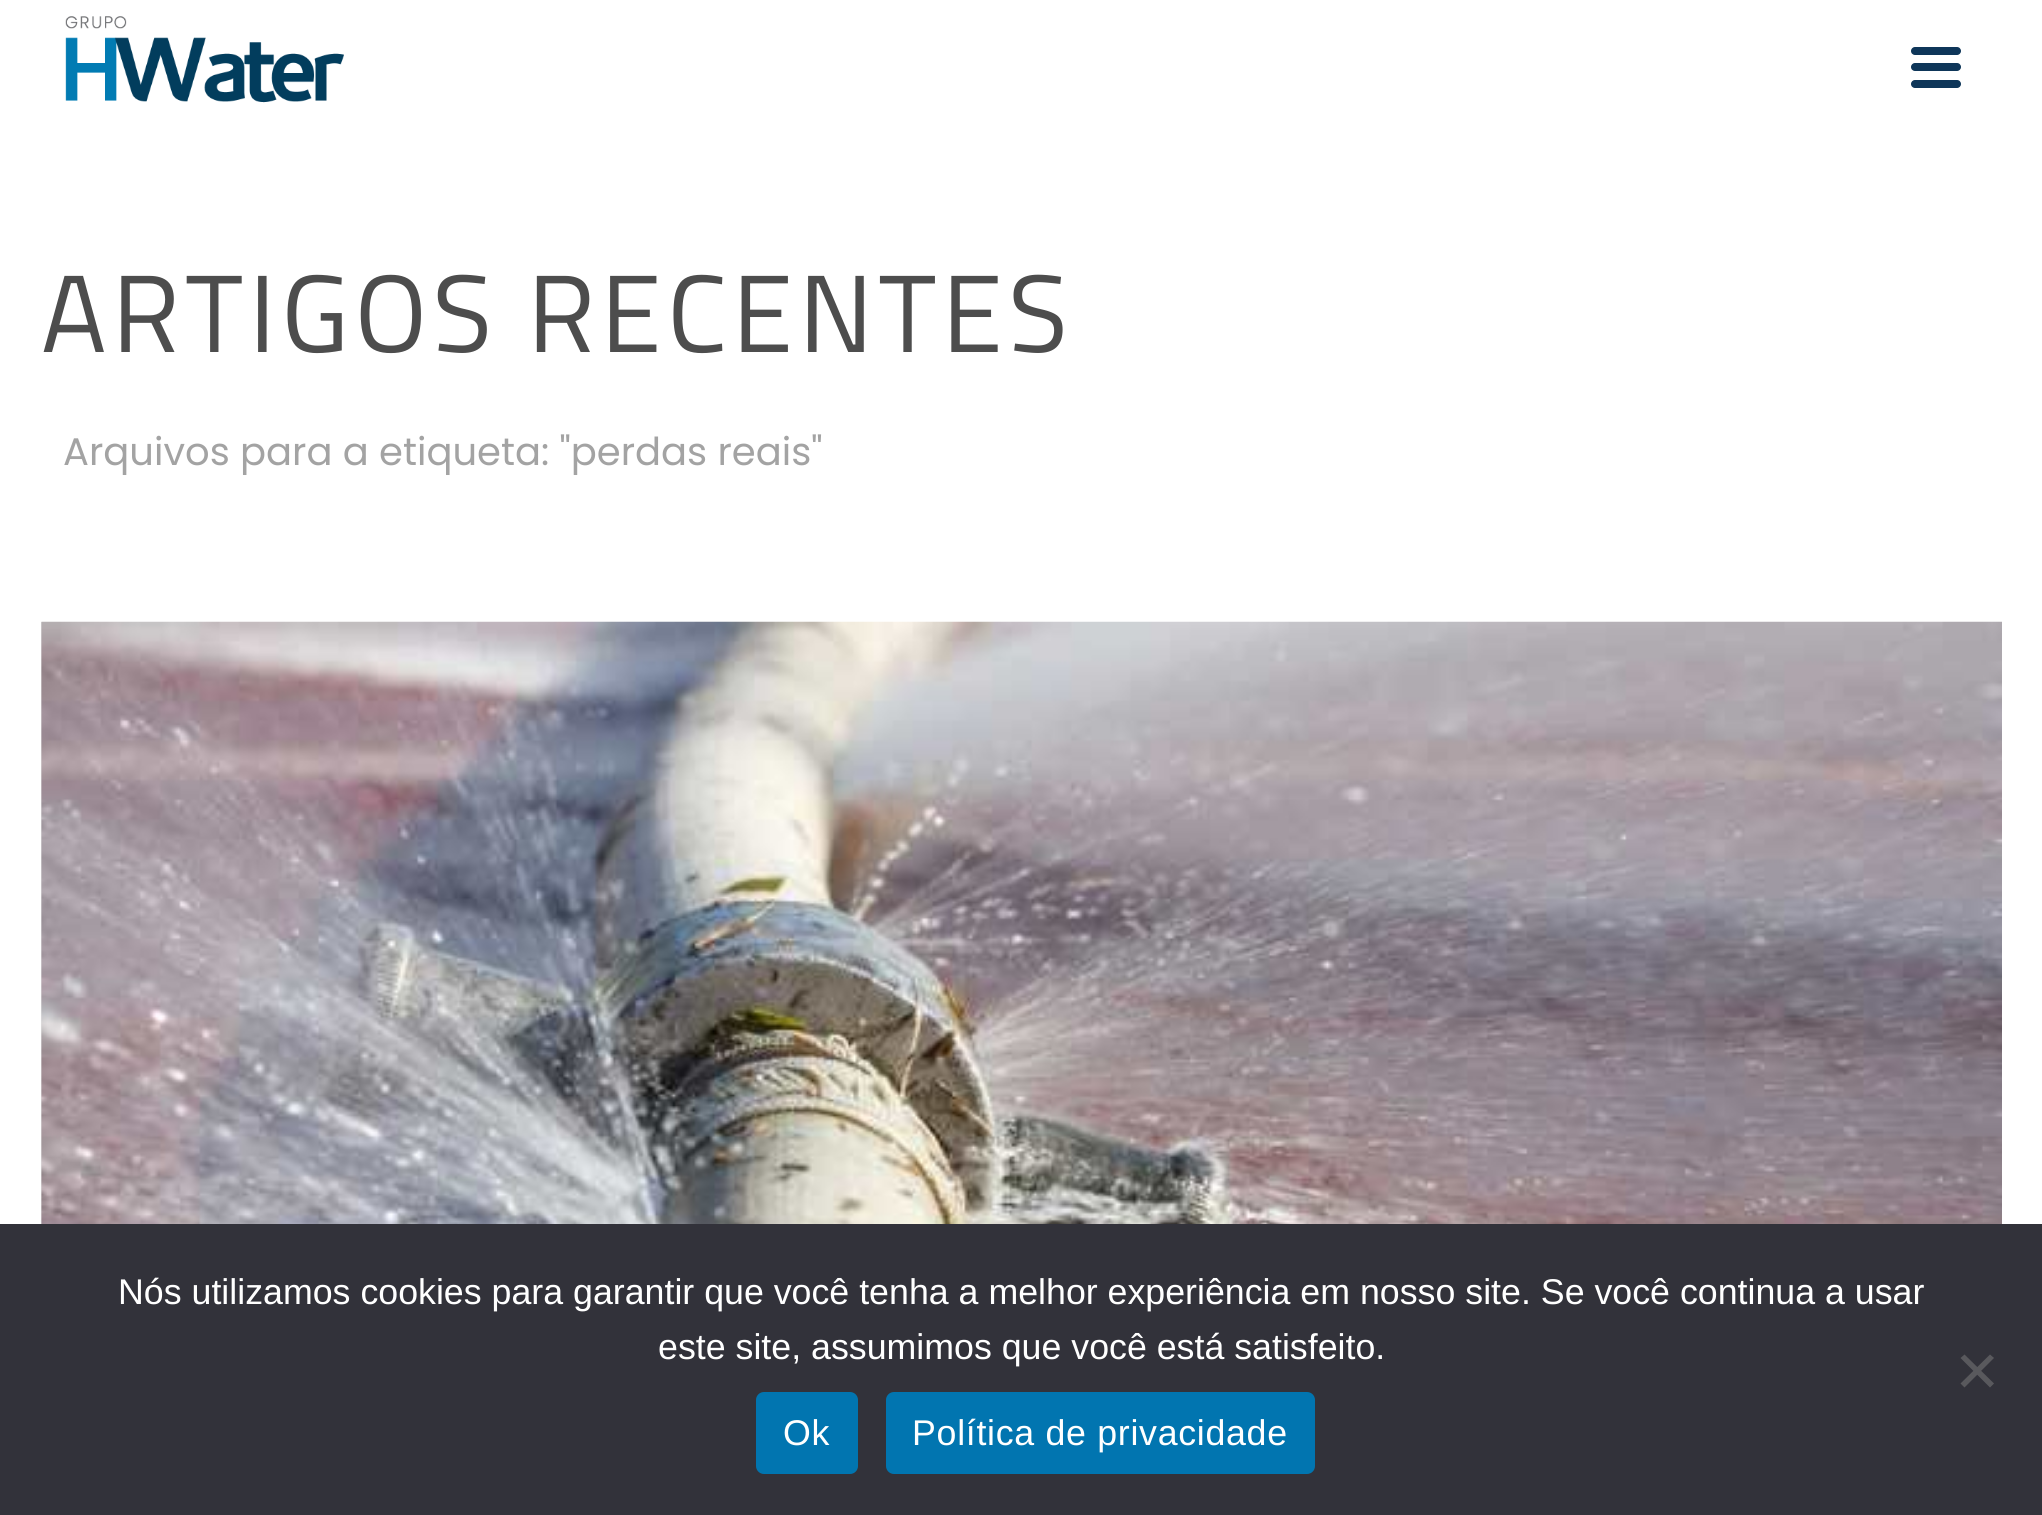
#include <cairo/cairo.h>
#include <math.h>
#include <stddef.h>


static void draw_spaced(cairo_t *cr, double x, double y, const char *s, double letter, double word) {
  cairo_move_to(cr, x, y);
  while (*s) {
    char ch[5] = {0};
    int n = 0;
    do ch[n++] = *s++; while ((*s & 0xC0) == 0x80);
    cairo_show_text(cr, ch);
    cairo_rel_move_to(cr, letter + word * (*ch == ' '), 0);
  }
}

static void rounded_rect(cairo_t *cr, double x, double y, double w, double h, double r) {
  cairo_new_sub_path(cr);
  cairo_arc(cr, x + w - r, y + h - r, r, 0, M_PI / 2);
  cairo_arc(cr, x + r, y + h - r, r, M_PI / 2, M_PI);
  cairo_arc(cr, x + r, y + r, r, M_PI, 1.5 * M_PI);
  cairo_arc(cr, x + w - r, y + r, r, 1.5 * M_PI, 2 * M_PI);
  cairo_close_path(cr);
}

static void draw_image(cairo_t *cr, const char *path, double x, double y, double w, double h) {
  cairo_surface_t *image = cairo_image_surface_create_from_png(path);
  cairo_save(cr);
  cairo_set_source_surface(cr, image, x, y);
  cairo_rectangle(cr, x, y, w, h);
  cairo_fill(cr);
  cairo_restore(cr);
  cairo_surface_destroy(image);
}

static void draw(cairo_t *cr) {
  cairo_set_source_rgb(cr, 1, 1, 1);
  cairo_paint(cr);
  draw_image(cr, "images/1.png", 65, 16, 279, 87);
  cairo_set_source_rgb(cr, 14 / 255.0, 54 / 255.0, 89 / 255.0);
  rounded_rect(cr, 1911, 47, 50, 8, 4);
  cairo_fill(cr);
  rounded_rect(cr, 1911, 63, 50, 8, 4);
  cairo_fill(cr);
  rounded_rect(cr, 1911, 80, 50, 8, 4);
  cairo_fill(cr);
  cairo_set_source_rgb(cr, 224 / 255.0, 224 / 255.0, 224 / 255.0);
  cairo_rectangle(cr, 41, 622, 1, 602);
  cairo_fill(cr);
  draw_image(cr, "images/2.png", 41, 621, 1961, 603);
  cairo_set_source_rgb(cr, 50 / 255.0, 50 / 255.0, 58 / 255.0);
  cairo_rectangle(cr, 0, 1224, 2042, 291);
  cairo_fill(cr);
  cairo_set_source_rgb(cr, 89 / 255.0, 89 / 255.0, 93 / 255.0);
  cairo_new_path(cr);
  cairo_move_to(cr, 1990, 1354.5);
  cairo_line_to(cr, 1994, 1358);
  cairo_line_to(cr, 1964.5, 1387.5);
  cairo_line_to(cr, 1960.5, 1383.5);
  cairo_close_path(cr);
  cairo_fill(cr);
  cairo_new_path(cr);
  cairo_move_to(cr, 1960.5, 1358);
  cairo_line_to(cr, 1964.5, 1354.5);
  cairo_line_to(cr, 1994, 1383.5);
  cairo_line_to(cr, 1990, 1387.5);
  cairo_close_path(cr);
  cairo_fill(cr);
  cairo_set_source_rgb(cr, 1 / 255.0, 117 / 255.0, 176 / 255.0);
  rounded_rect(cr, 756, 1392, 102, 82, 8);
  cairo_fill(cr);
  rounded_rect(cr, 886, 1392, 429, 82, 8);
  cairo_fill(cr);
  cairo_select_font_face(cr, "Titillium Web", CAIRO_FONT_SLANT_NORMAL, CAIRO_FONT_WEIGHT_NORMAL);
  cairo_set_font_size(cr, 110);
  cairo_set_source_rgb(cr, 77 / 255.0, 77 / 255.0, 77 / 255.0);
  draw_spaced(cr, 41, 352, "ARTIGOS RECENTES", 5.5, 0);
  cairo_select_font_face(cr, "Poppins", CAIRO_FONT_SLANT_NORMAL, CAIRO_FONT_WEIGHT_NORMAL);
  cairo_set_font_size(cr, 38.5);
  cairo_set_source_rgb(cr, 163 / 255.0, 163 / 255.0, 163 / 255.0);
  cairo_move_to(cr, 63, 465);
  cairo_show_text(cr, "Arquivos para a etiqueta: \"perdas reais\"");
  cairo_select_font_face(cr, "Liberation Sans", CAIRO_FONT_SLANT_NORMAL, CAIRO_FONT_WEIGHT_NORMAL);
  cairo_set_font_size(cr, 35.75);
  cairo_set_source_rgb(cr, 1, 1, 1);
  cairo_move_to(cr, 118, 1304);
  cairo_show_text(cr, "Nós utilizamos cookies para garantir que você tenha a melhor experiência em nosso site. Se você continua a usar");
  cairo_move_to(cr, 658, 1359);
  cairo_show_text(cr, "este site, assumimos que você está satisfeito.");
  draw_spaced(cr, 783, 1445, "Ok", 0.7, 0);
  draw_spaced(cr, 912, 1445, "Política de privacidade", 0.7, 0);
}

int main(void) {
  cairo_surface_t *surface = cairo_image_surface_create(CAIRO_FORMAT_RGB24, 2042, 1515);
  cairo_t *cr = cairo_create(surface);
  cairo_font_options_t *options = cairo_font_options_create();
  cairo_font_options_set_hint_metrics(options, CAIRO_HINT_METRICS_OFF);
  cairo_font_options_set_hint_style(options, CAIRO_HINT_STYLE_NONE);
  cairo_set_font_options(cr, options);
  cairo_set_miter_limit(cr, 4);
  draw(cr);
  cairo_surface_write_to_png(surface, "out.png");
  cairo_font_options_destroy(options);
  cairo_destroy(cr);
  cairo_surface_destroy(surface);
  return 0;
}
